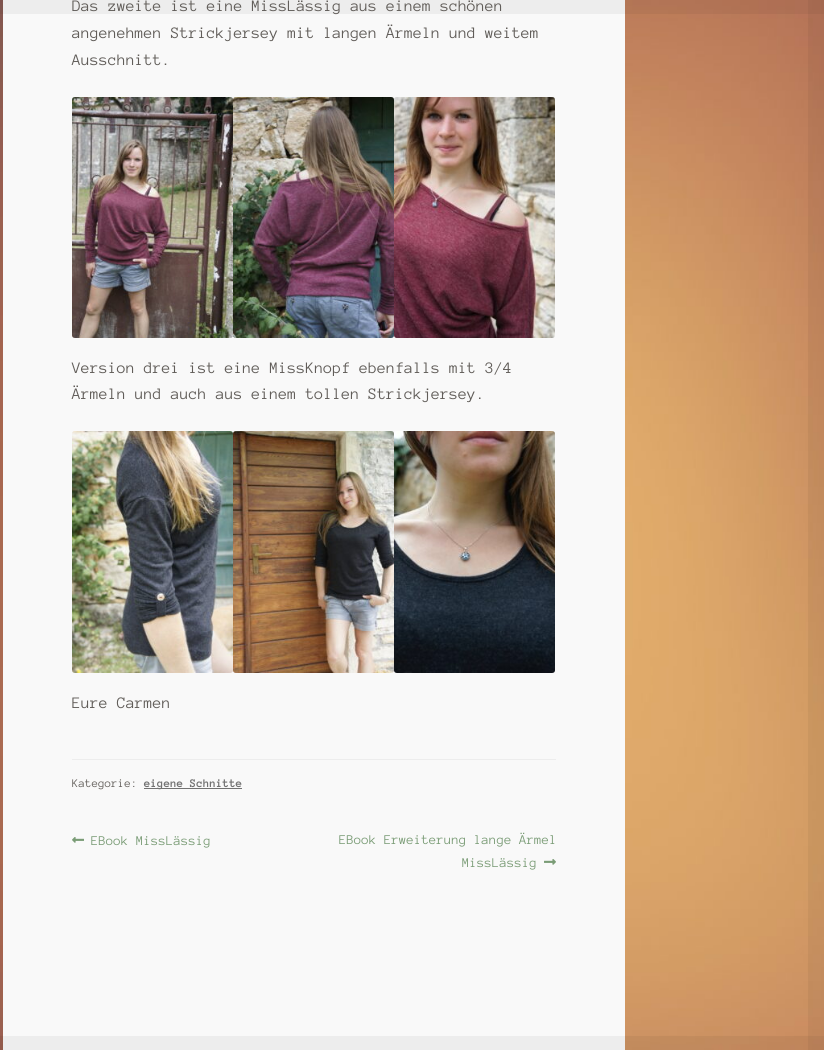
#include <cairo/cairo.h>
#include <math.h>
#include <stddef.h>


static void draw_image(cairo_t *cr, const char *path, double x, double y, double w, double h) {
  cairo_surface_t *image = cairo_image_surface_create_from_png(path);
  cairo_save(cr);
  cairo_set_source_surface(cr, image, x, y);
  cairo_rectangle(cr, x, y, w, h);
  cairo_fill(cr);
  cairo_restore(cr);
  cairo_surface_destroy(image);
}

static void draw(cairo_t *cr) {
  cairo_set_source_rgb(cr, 1, 1, 1);
  cairo_paint(cr);
  draw_image(cr, "images/1.png", 0, 0, 824, 1050);
  cairo_set_source_rgba(cr, 0, 0, 0, 0.05);
  cairo_rectangle(cr, 0, 0, 3, 1050);
  cairo_fill(cr);
  cairo_set_source_rgb(cr, 249 / 255.0, 249 / 255.0, 249 / 255.0);
  cairo_rectangle(cr, 3, 0, 622, 1050);
  cairo_fill(cr);
  cairo_set_source_rgba(cr, 0, 0, 0, 0.05);
  cairo_rectangle(cr, 808, 0, 16, 1050);
  cairo_fill(cr);
  cairo_rectangle(cr, 0, 0, 824, 14);
  cairo_fill(cr);
  draw_image(cr, "images/2.png", 72, 97, 161, 241);
  draw_image(cr, "images/3.png", 233, 97, 161, 241);
  draw_image(cr, "images/4.png", 394, 97, 161, 241);
  draw_image(cr, "images/5.png", 72, 431, 161, 242);
  draw_image(cr, "images/6.png", 233, 431, 161, 242);
  draw_image(cr, "images/7.png", 394, 431, 161, 242);
  cairo_set_source_rgb(cr, 237 / 255.0, 237 / 255.0, 237 / 255.0);
  cairo_rectangle(cr, 72, 759, 484, 1);
  cairo_fill(cr);
  cairo_set_source_rgb(cr, 114 / 255.0, 114 / 255.0, 114 / 255.0);
  cairo_rectangle(cr, 144, 788, 98, 1);
  cairo_fill(cr);
  draw_image(cr, "images/8.png", 72, 837, 12, 6);
  draw_image(cr, "images/9.png", 544, 859, 12, 6);
  cairo_set_source_rgba(cr, 0, 0, 0, 0.05);
  cairo_rectangle(cr, 0, 1036, 824, 14);
  cairo_fill(cr);
  cairo_select_font_face(cr, "Anonymous Pro", CAIRO_FONT_SLANT_NORMAL, CAIRO_FONT_WEIGHT_NORMAL);
  cairo_set_font_size(cr, 16.45);
  cairo_set_source_rgb(cr, 97 / 255.0, 93 / 255.0, 89 / 255.0);
  cairo_move_to(cr, 72, 11);
  cairo_show_text(cr, "Das zweite ist eine MissLässig aus einem schönen");
  cairo_move_to(cr, 72, 38);
  cairo_show_text(cr, "angenehmen Strickjersey mit langen Ärmeln und weitem");
  cairo_move_to(cr, 72, 65);
  cairo_show_text(cr, "Ausschnitt.");
  cairo_move_to(cr, 72, 373);
  cairo_show_text(cr, "Version drei ist eine MissKnopf ebenfalls mit 3/4");
  cairo_move_to(cr, 72, 399);
  cairo_show_text(cr, "Ärmeln und auch aus einem tollen Strickjersey.");
  cairo_move_to(cr, 72, 708);
  cairo_show_text(cr, "Eure Carmen");
  cairo_set_font_size(cr, 12);
  cairo_move_to(cr, 72, 787);
  cairo_show_text(cr, "Kategorie:");
  cairo_select_font_face(cr, "Anonymous Pro", CAIRO_FONT_SLANT_NORMAL, CAIRO_FONT_WEIGHT_BOLD);
  cairo_set_source_rgb(cr, 114 / 255.0, 114 / 255.0, 114 / 255.0);
  cairo_move_to(cr, 144, 787);
  cairo_show_text(cr, "eigene Schnitte");
  cairo_select_font_face(cr, "Anonymous Pro", CAIRO_FONT_SLANT_NORMAL, CAIRO_FONT_WEIGHT_NORMAL);
  cairo_set_font_size(cr, 13.75);
  cairo_set_source_rgb(cr, 122 / 255.0, 156 / 255.0, 118 / 255.0);
  cairo_move_to(cr, 91, 845);
  cairo_show_text(cr, "EBook MissLässig");
  cairo_move_to(cr, 339, 844);
  cairo_show_text(cr, "EBook Erweiterung lange Ärmel");
  cairo_move_to(cr, 462, 867);
  cairo_show_text(cr, "MissLässig");
}

int main(void) {
  cairo_surface_t *surface = cairo_image_surface_create(CAIRO_FORMAT_RGB24, 824, 1050);
  cairo_t *cr = cairo_create(surface);
  cairo_font_options_t *options = cairo_font_options_create();
  cairo_font_options_set_hint_metrics(options, CAIRO_HINT_METRICS_OFF);
  cairo_font_options_set_hint_style(options, CAIRO_HINT_STYLE_NONE);
  cairo_set_font_options(cr, options);
  cairo_set_miter_limit(cr, 4);
  draw(cr);
  cairo_surface_write_to_png(surface, "out.png");
  cairo_font_options_destroy(options);
  cairo_destroy(cr);
  cairo_surface_destroy(surface);
  return 0;
}
